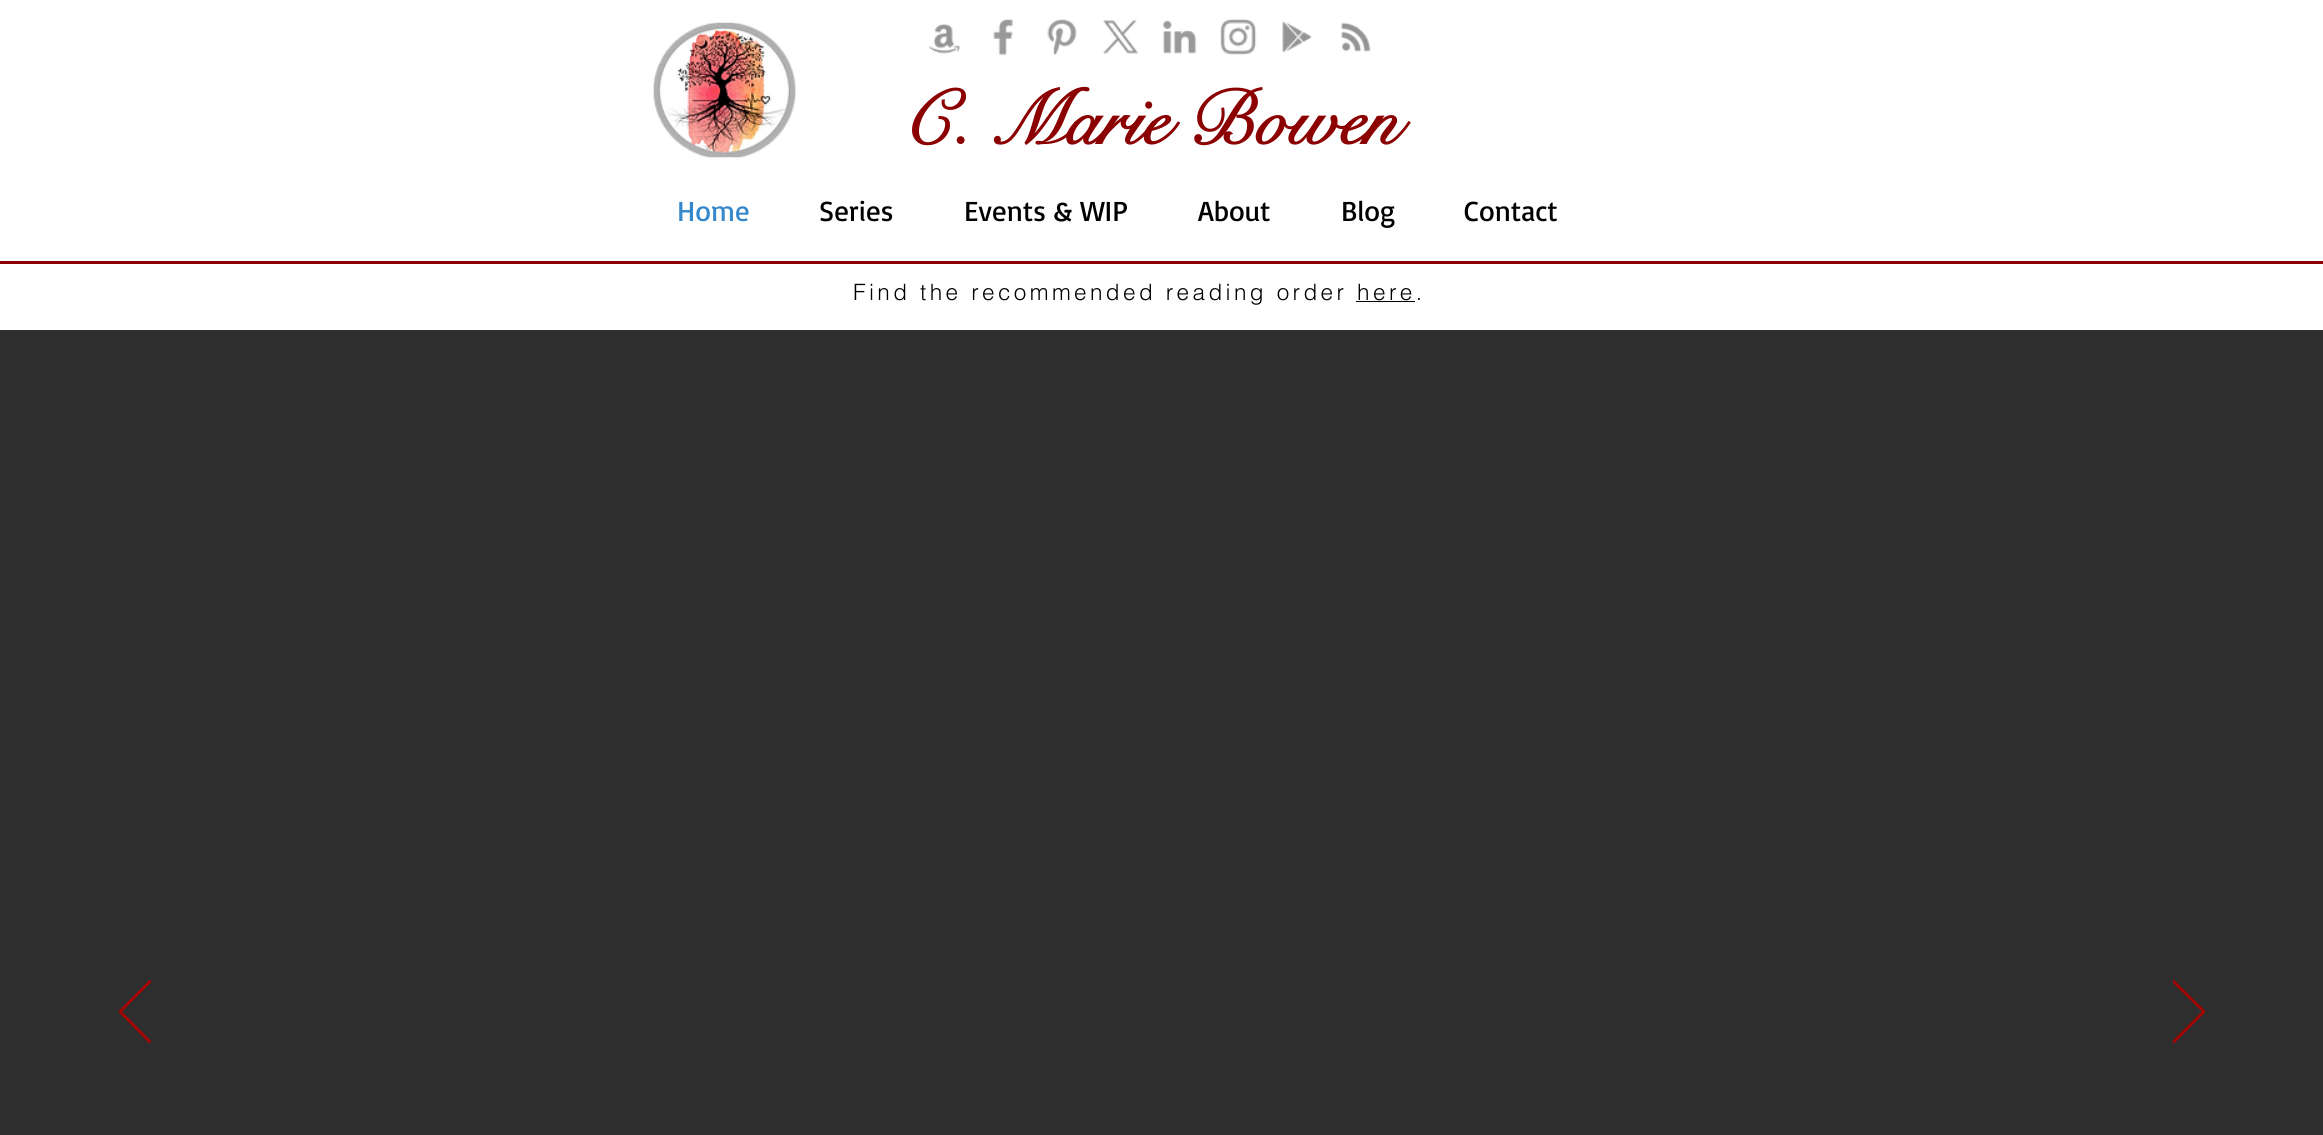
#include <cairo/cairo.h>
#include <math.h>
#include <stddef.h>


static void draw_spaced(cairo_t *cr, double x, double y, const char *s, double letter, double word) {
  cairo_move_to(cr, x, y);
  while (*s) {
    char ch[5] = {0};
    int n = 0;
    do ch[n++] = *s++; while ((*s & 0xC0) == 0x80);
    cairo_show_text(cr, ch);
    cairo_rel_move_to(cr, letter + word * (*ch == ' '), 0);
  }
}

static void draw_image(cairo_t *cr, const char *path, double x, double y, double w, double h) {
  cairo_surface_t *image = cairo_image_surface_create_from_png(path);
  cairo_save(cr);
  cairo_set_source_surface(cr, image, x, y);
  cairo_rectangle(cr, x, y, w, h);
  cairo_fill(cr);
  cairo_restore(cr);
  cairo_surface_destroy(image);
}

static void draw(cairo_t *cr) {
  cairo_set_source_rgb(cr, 1, 1, 1);
  cairo_paint(cr);
  draw_image(cr, "images/1.png", 652, 22, 145, 136);
  draw_image(cr, "images/2.png", 928, 23, 33, 31);
  draw_image(cr, "images/3.png", 993, 18, 20, 38);
  draw_image(cr, "images/4.png", 1047, 19, 30, 36);
  draw_image(cr, "images/5.png", 1102, 20, 37, 34);
  draw_image(cr, "images/6.png", 1162, 20, 35, 34);
  draw_image(cr, "images/7.png", 1220, 18, 37, 37);
  draw_image(cr, "images/8.png", 1282, 21, 30, 32);
  draw_image(cr, "images/9.png", 1341, 22, 30, 30);
  cairo_set_source_rgb(cr, 139 / 255.0, 0, 0);
  cairo_rectangle(cr, 0, 261, 2323, 3);
  cairo_fill(cr);
  cairo_set_source_rgb(cr, 0, 0, 0);
  cairo_rectangle(cr, 1356, 301, 59, 1);
  cairo_fill(cr);
  cairo_set_source_rgb(cr, 46 / 255.0, 46 / 255.0, 46 / 255.0);
  cairo_rectangle(cr, 0, 330, 2323, 805);
  cairo_fill(cr);
  cairo_save(cr);
  cairo_rectangle(cr, 119, 980, 32, 63);
  cairo_clip(cr);
  cairo_new_path(cr);
  cairo_move_to(cr, 150, 1043);
  cairo_line_to(cr, 119, 1011.5);
  cairo_line_to(cr, 150, 980.5);
  cairo_line_to(cr, 151, 981.5);
  cairo_line_to(cr, 121, 1011.5);
  cairo_line_to(cr, 151, 1042);
  cairo_close_path(cr);
  cairo_set_source_rgb(cr, 164 / 255.0, 6 / 255.0, 6 / 255.0);
  cairo_set_line_width(cr, 1.5);
  cairo_stroke(cr);
  cairo_restore(cr);
  cairo_save(cr);
  cairo_rectangle(cr, 2173, 980, 32, 63);
  cairo_clip(cr);
  cairo_new_path(cr);
  cairo_move_to(cr, 2173.5, 1043);
  cairo_line_to(cr, 2205, 1011.5);
  cairo_line_to(cr, 2173.5, 980.5);
  cairo_line_to(cr, 2172.5, 981.5);
  cairo_line_to(cr, 2203, 1011.5);
  cairo_line_to(cr, 2172.5, 1042);
  cairo_close_path(cr);
  cairo_set_source_rgb(cr, 164 / 255.0, 6 / 255.0, 6 / 255.0);
  cairo_set_line_width(cr, 1.5);
  cairo_stroke(cr);
  cairo_restore(cr);
  cairo_select_font_face(cr, "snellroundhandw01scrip", CAIRO_FONT_SLANT_NORMAL, CAIRO_FONT_WEIGHT_BOLD);
  cairo_set_font_size(cr, 76.25);
  cairo_set_source_rgb(cr, 139 / 255.0, 0, 0);
  cairo_move_to(cr, 901, 144);
  cairo_show_text(cr, "C. Marie Bowen");
  cairo_select_font_face(cr, "Basic", CAIRO_FONT_SLANT_NORMAL, CAIRO_FONT_WEIGHT_NORMAL);
  cairo_set_font_size(cr, 28.75);
  cairo_set_source_rgb(cr, 53 / 255.0, 136 / 255.0, 204 / 255.0);
  cairo_move_to(cr, 677, 221);
  cairo_show_text(cr, "Home");
  cairo_set_source_rgb(cr, 0, 0, 0);
  cairo_move_to(cr, 819, 221);
  cairo_show_text(cr, "Series");
  cairo_move_to(cr, 964, 221);
  cairo_show_text(cr, "Events & WIP");
  cairo_move_to(cr, 1198, 221);
  cairo_show_text(cr, "About");
  cairo_move_to(cr, 1341, 221);
  cairo_show_text(cr, "Blog");
  cairo_move_to(cr, 1464, 221);
  cairo_show_text(cr, "Contact");
  cairo_select_font_face(cr, "helvetica Light", CAIRO_FONT_SLANT_NORMAL, CAIRO_FONT_WEIGHT_NORMAL);
  cairo_set_font_size(cr, 22.5);
  draw_spaced(cr, 853, 300, "Find the recommended reading order here.", 3.4, 0);
}

int main(void) {
  cairo_surface_t *surface = cairo_image_surface_create(CAIRO_FORMAT_RGB24, 2323, 1135);
  cairo_t *cr = cairo_create(surface);
  cairo_font_options_t *options = cairo_font_options_create();
  cairo_font_options_set_hint_metrics(options, CAIRO_HINT_METRICS_OFF);
  cairo_font_options_set_hint_style(options, CAIRO_HINT_STYLE_NONE);
  cairo_set_font_options(cr, options);
  cairo_set_miter_limit(cr, 4);
  draw(cr);
  cairo_surface_write_to_png(surface, "out.png");
  cairo_font_options_destroy(options);
  cairo_destroy(cr);
  cairo_surface_destroy(surface);
  return 0;
}
